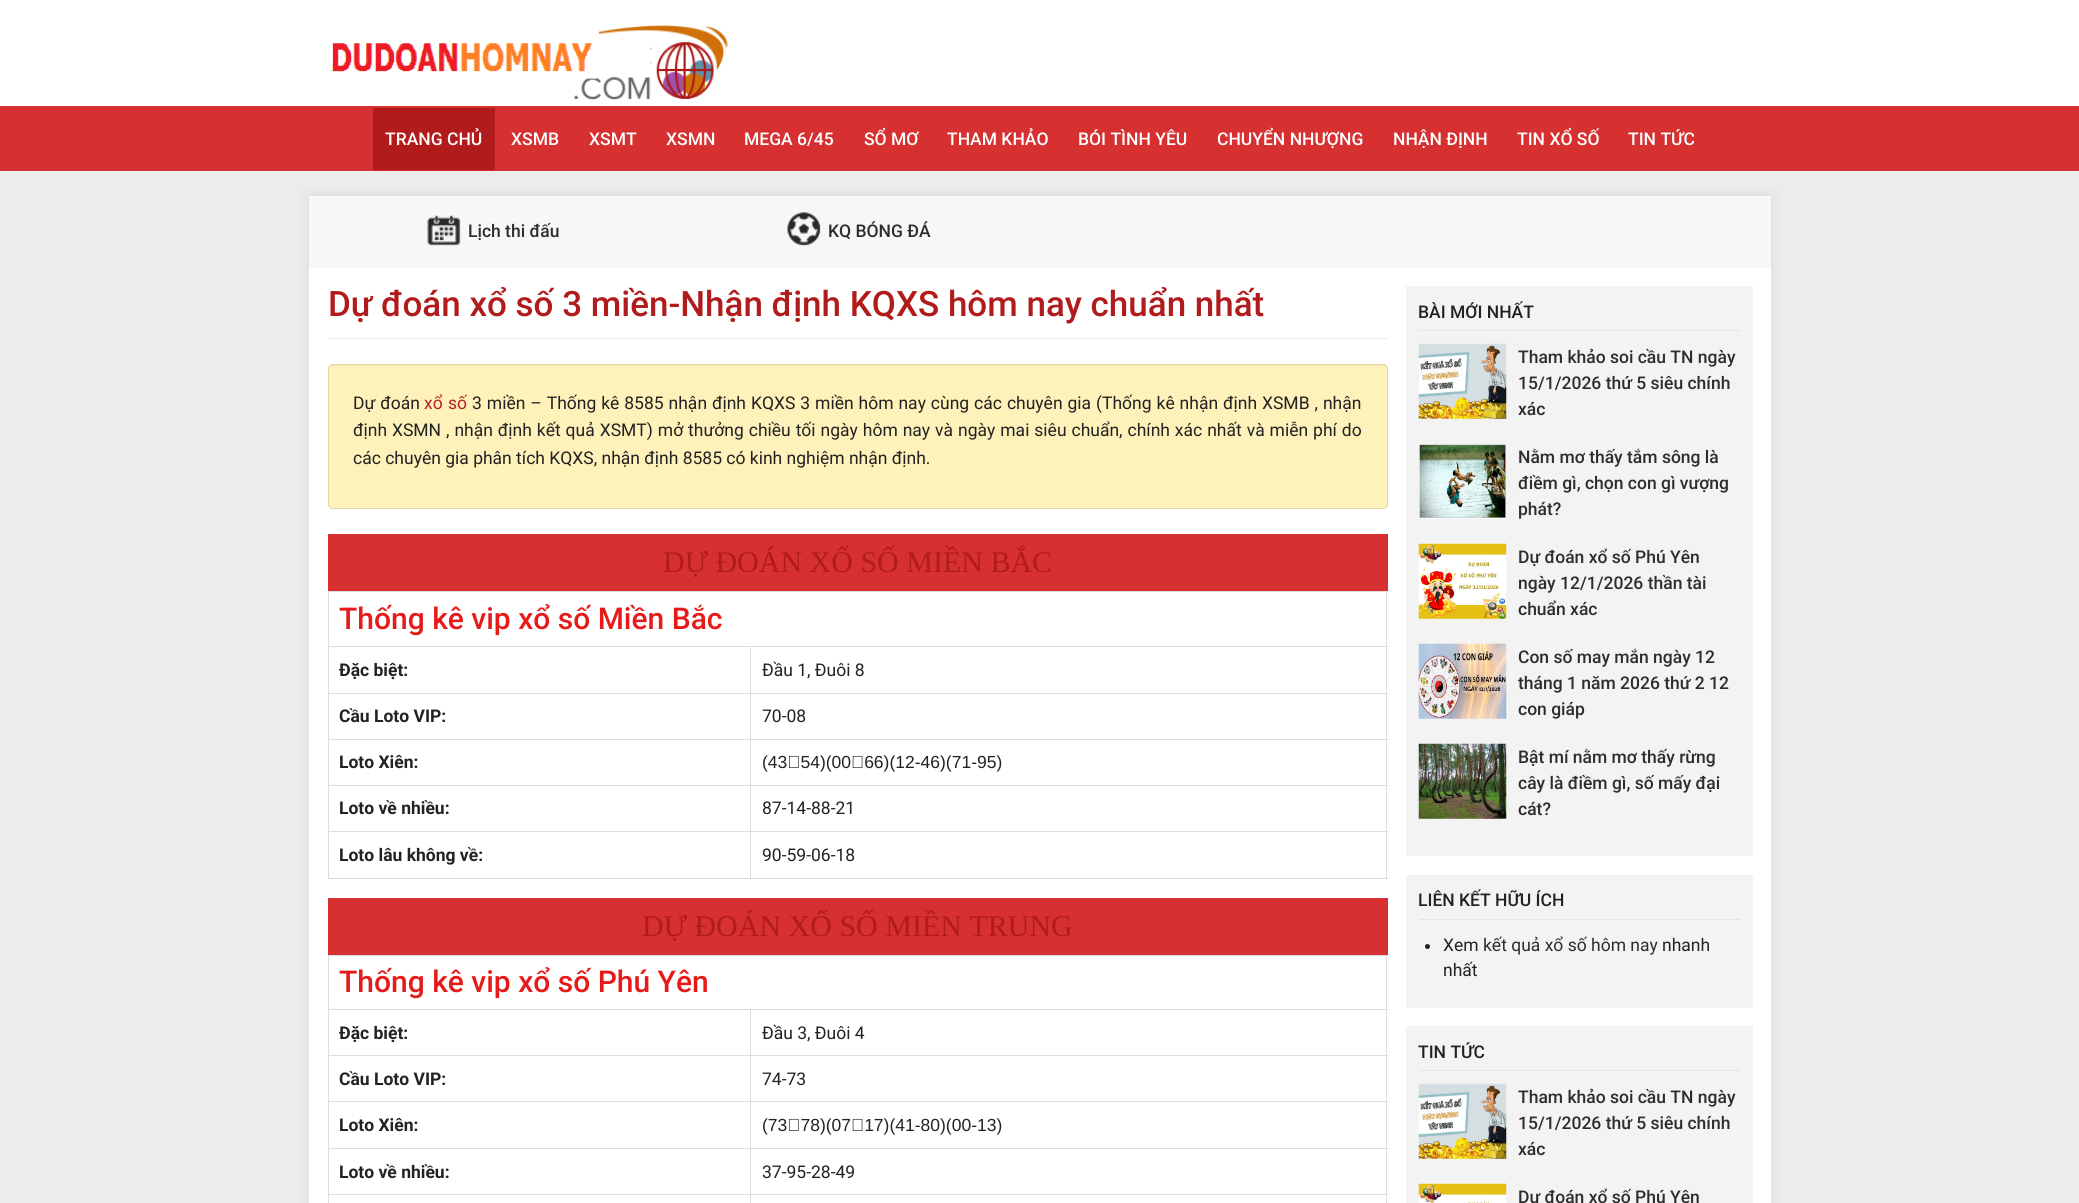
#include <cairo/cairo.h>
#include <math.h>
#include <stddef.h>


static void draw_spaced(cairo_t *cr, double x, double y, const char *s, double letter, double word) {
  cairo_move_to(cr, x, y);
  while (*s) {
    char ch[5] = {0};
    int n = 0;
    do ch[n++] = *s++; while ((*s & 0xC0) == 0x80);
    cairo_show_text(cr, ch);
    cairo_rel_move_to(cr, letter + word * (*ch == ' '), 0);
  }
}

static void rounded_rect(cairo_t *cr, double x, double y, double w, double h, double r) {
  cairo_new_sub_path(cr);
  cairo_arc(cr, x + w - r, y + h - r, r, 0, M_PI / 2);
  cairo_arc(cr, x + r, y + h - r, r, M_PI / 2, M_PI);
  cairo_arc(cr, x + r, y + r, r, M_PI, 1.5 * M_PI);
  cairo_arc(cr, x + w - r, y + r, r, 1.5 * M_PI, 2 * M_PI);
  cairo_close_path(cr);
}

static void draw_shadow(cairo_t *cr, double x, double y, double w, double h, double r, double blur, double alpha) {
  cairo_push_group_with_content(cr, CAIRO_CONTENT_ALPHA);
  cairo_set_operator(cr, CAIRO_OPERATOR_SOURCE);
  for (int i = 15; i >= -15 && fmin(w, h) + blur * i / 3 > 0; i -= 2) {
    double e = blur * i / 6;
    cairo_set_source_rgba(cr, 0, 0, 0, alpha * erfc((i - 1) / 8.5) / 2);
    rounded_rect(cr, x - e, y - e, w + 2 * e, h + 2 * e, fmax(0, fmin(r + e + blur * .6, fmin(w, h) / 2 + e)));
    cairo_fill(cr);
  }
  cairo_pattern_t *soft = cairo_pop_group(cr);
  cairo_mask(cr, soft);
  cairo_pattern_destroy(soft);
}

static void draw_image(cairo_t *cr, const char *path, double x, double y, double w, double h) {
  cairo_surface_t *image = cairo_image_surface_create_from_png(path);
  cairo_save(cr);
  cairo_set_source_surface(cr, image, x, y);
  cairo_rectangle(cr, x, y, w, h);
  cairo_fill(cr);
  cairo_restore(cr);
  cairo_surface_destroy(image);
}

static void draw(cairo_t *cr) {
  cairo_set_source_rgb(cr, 236 / 255.0, 236 / 255.0, 236 / 255.0);
  cairo_paint(cr);
  cairo_set_source_rgb(cr, 1, 1, 1);
  cairo_rectangle(cr, 0, 0, 2079, 106);
  cairo_fill(cr);
  draw_image(cr, "images/1.png", 331, 25, 397, 75);
  cairo_set_source_rgb(cr, 214 / 255.0, 48 / 255.0, 49 / 255.0);
  cairo_rectangle(cr, 0, 106, 2079, 65);
  cairo_fill(cr);
  cairo_set_source_rgb(cr, 177 / 255.0, 27 / 255.0, 27 / 255.0);
  cairo_rectangle(cr, 373, 108, 122, 62);
  cairo_fill(cr);
  cairo_set_source_rgb(cr, 0, 0, 0);
  draw_shadow(cr, 309, 196, 1462, 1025, 0, 6, 0.09);
  cairo_set_source_rgb(cr, 1, 1, 1);
  cairo_rectangle(cr, 309, 268, 1462, 935);
  cairo_fill(cr);
  cairo_set_source_rgb(cr, 247 / 255.0, 247 / 255.0, 247 / 255.0);
  cairo_rectangle(cr, 309, 196, 1462, 72);
  cairo_fill(cr);
  draw_image(cr, "images/2.png", 427, 215, 34, 31);
  draw_image(cr, "images/3.png", 787, 212, 34, 34);
  cairo_set_source_rgb(cr, 236 / 255.0, 236 / 255.0, 236 / 255.0);
  cairo_rectangle(cr, 328, 338, 1060, 1);
  cairo_fill(cr);
  cairo_set_source_rgb(cr, 1, 241 / 255.0, 186 / 255.0);
  rounded_rect(cr, 328, 364, 1060, 145, 5);
  cairo_fill(cr);
  cairo_set_source_rgb(cr, 242 / 255.0, 229 / 255.0, 177 / 255.0);
  cairo_new_path(cr);
  cairo_move_to(cr, 332, 366);
  cairo_line_to(cr, 1382, 366);
  cairo_curve_to(cr, 1385, 366, 1386, 368, 1386, 370);
  cairo_curve_to(cr, 1386, 367, 1385, 365, 1382, 365);
  cairo_line_to(cr, 333, 365);
  cairo_curve_to(cr, 330, 365, 329, 367, 329, 370);
  cairo_curve_to(cr, 329, 368, 330, 366, 332, 366);
  cairo_close_path(cr);
  cairo_fill(cr);
  rounded_rect(cr, 328.5, 364.5, 1059, 144, 4.5);
  cairo_set_source_rgb(cr, 228 / 255.0, 216 / 255.0, 168 / 255.0);
  cairo_set_line_width(cr, 1);
  cairo_stroke(cr);
  cairo_set_source_rgb(cr, 214 / 255.0, 48 / 255.0, 49 / 255.0);
  cairo_rectangle(cr, 328, 534, 1060, 57);
  cairo_fill(cr);
  cairo_set_source_rgb(cr, 221 / 255.0, 221 / 255.0, 221 / 255.0);
  cairo_rectangle(cr, 328, 591, 1060, 1);
  cairo_fill(cr);
  cairo_rectangle(cr, 750, 646, 638, 1);
  cairo_fill(cr);
  cairo_rectangle(cr, 750, 693, 638, 1);
  cairo_fill(cr);
  cairo_rectangle(cr, 750, 739, 638, 1);
  cairo_fill(cr);
  cairo_rectangle(cr, 750, 785, 638, 1);
  cairo_fill(cr);
  cairo_rectangle(cr, 750, 831, 638, 1);
  cairo_fill(cr);
  cairo_rectangle(cr, 1386, 831, 1, 48);
  cairo_fill(cr);
  cairo_rectangle(cr, 1386, 785, 1, 48);
  cairo_fill(cr);
  cairo_rectangle(cr, 1386, 739, 1, 47);
  cairo_fill(cr);
  cairo_rectangle(cr, 1386, 693, 1, 47);
  cairo_fill(cr);
  cairo_rectangle(cr, 1386, 646, 1, 48);
  cairo_fill(cr);
  cairo_rectangle(cr, 1386, 591, 1, 57);
  cairo_fill(cr);
  cairo_rectangle(cr, 750, 878, 638, 1);
  cairo_fill(cr);
  cairo_rectangle(cr, 750, 831, 1, 48);
  cairo_fill(cr);
  cairo_rectangle(cr, 328, 831, 423, 1);
  cairo_fill(cr);
  cairo_rectangle(cr, 750, 785, 1, 48);
  cairo_fill(cr);
  cairo_rectangle(cr, 328, 785, 423, 1);
  cairo_fill(cr);
  cairo_rectangle(cr, 750, 739, 1, 47);
  cairo_fill(cr);
  cairo_rectangle(cr, 328, 739, 423, 1);
  cairo_fill(cr);
  cairo_rectangle(cr, 750, 693, 1, 47);
  cairo_fill(cr);
  cairo_rectangle(cr, 328, 693, 423, 1);
  cairo_fill(cr);
  cairo_rectangle(cr, 750, 646, 1, 48);
  cairo_fill(cr);
  cairo_rectangle(cr, 328, 646, 423, 1);
  cairo_fill(cr);
  cairo_rectangle(cr, 328, 878, 423, 1);
  cairo_fill(cr);
  cairo_rectangle(cr, 328, 831, 1, 48);
  cairo_fill(cr);
  cairo_rectangle(cr, 328, 785, 1, 48);
  cairo_fill(cr);
  cairo_rectangle(cr, 328, 739, 1, 47);
  cairo_fill(cr);
  cairo_rectangle(cr, 328, 693, 1, 47);
  cairo_fill(cr);
  cairo_rectangle(cr, 328, 646, 1, 48);
  cairo_fill(cr);
  cairo_rectangle(cr, 328, 591, 1, 57);
  cairo_fill(cr);
  cairo_set_source_rgb(cr, 214 / 255.0, 48 / 255.0, 49 / 255.0);
  cairo_rectangle(cr, 328, 898, 1060, 57);
  cairo_fill(cr);
  cairo_set_source_rgb(cr, 221 / 255.0, 221 / 255.0, 221 / 255.0);
  cairo_rectangle(cr, 328, 955, 1060, 1);
  cairo_fill(cr);
  cairo_rectangle(cr, 750, 1009, 638, 1);
  cairo_fill(cr);
  cairo_rectangle(cr, 750, 1055, 638, 1);
  cairo_fill(cr);
  cairo_rectangle(cr, 750, 1101, 638, 1);
  cairo_fill(cr);
  cairo_rectangle(cr, 750, 1148, 638, 1);
  cairo_fill(cr);
  cairo_rectangle(cr, 750, 1194, 638, 1);
  cairo_fill(cr);
  cairo_rectangle(cr, 1386, 1194, 1, 9);
  cairo_fill(cr);
  cairo_rectangle(cr, 1386, 1148, 1, 47);
  cairo_fill(cr);
  cairo_rectangle(cr, 1386, 1101, 1, 48);
  cairo_fill(cr);
  cairo_rectangle(cr, 1386, 1055, 1, 48);
  cairo_fill(cr);
  cairo_rectangle(cr, 1386, 1009, 1, 47);
  cairo_fill(cr);
  cairo_rectangle(cr, 1386, 955, 1, 55);
  cairo_fill(cr);
  cairo_rectangle(cr, 750, 1194, 1, 9);
  cairo_fill(cr);
  cairo_rectangle(cr, 328, 1194, 423, 1);
  cairo_fill(cr);
  cairo_rectangle(cr, 750, 1148, 1, 47);
  cairo_fill(cr);
  cairo_rectangle(cr, 328, 1148, 423, 1);
  cairo_fill(cr);
  cairo_rectangle(cr, 750, 1101, 1, 48);
  cairo_fill(cr);
  cairo_rectangle(cr, 328, 1101, 423, 1);
  cairo_fill(cr);
  cairo_rectangle(cr, 750, 1055, 1, 48);
  cairo_fill(cr);
  cairo_rectangle(cr, 328, 1055, 423, 1);
  cairo_fill(cr);
  cairo_rectangle(cr, 750, 1009, 1, 47);
  cairo_fill(cr);
  cairo_rectangle(cr, 328, 1009, 423, 1);
  cairo_fill(cr);
  cairo_rectangle(cr, 328, 1194, 1, 9);
  cairo_fill(cr);
  cairo_rectangle(cr, 328, 1148, 1, 47);
  cairo_fill(cr);
  cairo_rectangle(cr, 328, 1101, 1, 48);
  cairo_fill(cr);
  cairo_rectangle(cr, 328, 1055, 1, 48);
  cairo_fill(cr);
  cairo_rectangle(cr, 328, 1009, 1, 47);
  cairo_fill(cr);
  cairo_rectangle(cr, 328, 955, 1, 55);
  cairo_fill(cr);
  cairo_set_source_rgb(cr, 243 / 255.0, 243 / 255.0, 243 / 255.0);
  cairo_rectangle(cr, 1406, 286, 347, 570);
  cairo_fill(cr);
  cairo_set_source_rgb(cr, 228 / 255.0, 228 / 255.0, 228 / 255.0);
  cairo_rectangle(cr, 1419, 330, 321, 1);
  cairo_fill(cr);
  draw_image(cr, "images/4.png", 1418, 343, 89, 76);
  draw_image(cr, "images/5.png", 1419, 444, 87, 75);
  draw_image(cr, "images/6.png", 1418, 543, 89, 76);
  draw_image(cr, "images/7.png", 1418, 643, 89, 76);
  draw_image(cr, "images/8.png", 1418, 743, 89, 76);
  cairo_set_source_rgb(cr, 243 / 255.0, 243 / 255.0, 243 / 255.0);
  cairo_rectangle(cr, 1406, 875, 347, 133);
  cairo_fill(cr);
  cairo_set_source_rgb(cr, 228 / 255.0, 228 / 255.0, 228 / 255.0);
  cairo_rectangle(cr, 1419, 919, 321, 1);
  cairo_fill(cr);
  cairo_set_source_rgb(cr, 34 / 255.0, 34 / 255.0, 34 / 255.0);
  cairo_arc(cr, 1427.5, 946.5, 2.5, 0, 2 * M_PI);
  cairo_fill(cr);
  cairo_set_source_rgb(cr, 243 / 255.0, 243 / 255.0, 243 / 255.0);
  cairo_rectangle(cr, 1406, 1026, 347, 177);
  cairo_fill(cr);
  cairo_set_source_rgb(cr, 228 / 255.0, 228 / 255.0, 228 / 255.0);
  cairo_rectangle(cr, 1419, 1070, 321, 1);
  cairo_fill(cr);
  draw_image(cr, "images/9.png", 1418, 1083, 89, 76);
  draw_image(cr, "images/10.png", 1418, 1183, 89, 20);
  cairo_select_font_face(cr, "Roboto Medium", CAIRO_FONT_SLANT_NORMAL, CAIRO_FONT_WEIGHT_NORMAL);
  cairo_set_font_size(cr, 17.5);
  cairo_set_source_rgb(cr, 1, 1, 1);
  cairo_move_to(cr, 385, 145);
  cairo_show_text(cr, "TRANG CHỦ");
  cairo_move_to(cr, 511, 145);
  cairo_show_text(cr, "XSMB");
  cairo_move_to(cr, 589, 145);
  cairo_show_text(cr, "XSMT");
  cairo_move_to(cr, 666, 145);
  cairo_show_text(cr, "XSMN");
  cairo_move_to(cr, 744, 145);
  cairo_show_text(cr, "MEGA 6/45");
  cairo_move_to(cr, 864, 145);
  cairo_show_text(cr, "SỔ MƠ");
  cairo_move_to(cr, 947, 145);
  cairo_show_text(cr, "THAM KHẢO");
  cairo_move_to(cr, 1078, 145);
  cairo_show_text(cr, "BÓI TÌNH YÊU");
  cairo_move_to(cr, 1217, 145);
  cairo_show_text(cr, "CHUYỂN NHƯỢNG");
  cairo_move_to(cr, 1393, 145);
  cairo_show_text(cr, "NHẬN ĐỊNH");
  cairo_move_to(cr, 1517, 145);
  cairo_show_text(cr, "TIN XỔ SỐ");
  cairo_move_to(cr, 1628, 145);
  cairo_show_text(cr, "TIN TỨC");
  cairo_set_source_rgb(cr, 45 / 255.0, 45 / 255.0, 45 / 255.0);
  cairo_move_to(cr, 468, 237);
  cairo_show_text(cr, "Lịch thi đấu");
  cairo_move_to(cr, 828, 237);
  cairo_show_text(cr, "KQ BÓNG ĐÁ");
  cairo_set_font_size(cr, 35);
  cairo_set_source_rgb(cr, 177 / 255.0, 27 / 255.0, 27 / 255.0);
  cairo_move_to(cr, 328, 316);
  cairo_show_text(cr, "Dự đoán xổ số 3 miền-Nhận định KQXS hôm nay chuẩn nhất");
  cairo_select_font_face(cr, "Roboto", CAIRO_FONT_SLANT_NORMAL, CAIRO_FONT_WEIGHT_NORMAL);
  cairo_set_font_size(cr, 17.5);
  cairo_set_source_rgb(cr, 34 / 255.0, 34 / 255.0, 34 / 255.0);
  draw_spaced(cr, 353, 409, "Dự đoán", 0, 0.6);
  cairo_set_source_rgb(cr, 181 / 255.0, 33 / 255.0, 42 / 255.0);
  draw_spaced(cr, 424, 409, "xổ số", 0, 1);
  cairo_set_source_rgb(cr, 34 / 255.0, 34 / 255.0, 34 / 255.0);
  draw_spaced(cr, 472, 409, "3 miền – Thống kê 8585 nhận định KQXS 3 miền hôm nay cùng các chuyên gia (Thống kê nhận định XSMB , nhận", 0, 0.6);
  draw_spaced(cr, 353, 436, "định XSMN , nhận định kết quả XSMT) mở thưởng chiều tối ngày hôm nay và ngày mai siêu chuẩn, chính xác nhất và miễn phí do", 0, 0.6);
  cairo_move_to(cr, 353, 464);
  cairo_show_text(cr, "các chuyên gia phân tích KQXS, nhận định 8585 có kinh nghiệm nhận định.");
  cairo_select_font_face(cr, "Liberation Serif", CAIRO_FONT_SLANT_NORMAL, CAIRO_FONT_WEIGHT_NORMAL);
  cairo_set_font_size(cr, 30);
  cairo_set_source_rgb(cr, 177 / 255.0, 27 / 255.0, 27 / 255.0);
  cairo_move_to(cr, 663, 572);
  cairo_show_text(cr, "DỰ ĐOÁN XỔ SỐ MIỀN BẮC");
  cairo_select_font_face(cr, "Roboto Medium", CAIRO_FONT_SLANT_NORMAL, CAIRO_FONT_WEIGHT_NORMAL);
  cairo_set_source_rgb(cr, 231 / 255.0, 26 / 255.0, 26 / 255.0);
  cairo_move_to(cr, 339, 629);
  cairo_show_text(cr, "Thống kê vip xổ số Miền Bắc");
  cairo_select_font_face(cr, "Roboto", CAIRO_FONT_SLANT_NORMAL, CAIRO_FONT_WEIGHT_BOLD);
  cairo_set_font_size(cr, 17.5);
  cairo_set_source_rgb(cr, 34 / 255.0, 34 / 255.0, 34 / 255.0);
  cairo_move_to(cr, 339, 676);
  cairo_show_text(cr, "Đặc biệt:");
  cairo_select_font_face(cr, "Roboto", CAIRO_FONT_SLANT_NORMAL, CAIRO_FONT_WEIGHT_NORMAL);
  cairo_move_to(cr, 762, 676);
  cairo_show_text(cr, "Đầu 1, Đuôi 8");
  cairo_select_font_face(cr, "Roboto", CAIRO_FONT_SLANT_NORMAL, CAIRO_FONT_WEIGHT_BOLD);
  cairo_move_to(cr, 339, 722);
  cairo_show_text(cr, "Cầu Loto VIP:");
  cairo_select_font_face(cr, "Roboto", CAIRO_FONT_SLANT_NORMAL, CAIRO_FONT_WEIGHT_NORMAL);
  cairo_move_to(cr, 762, 722);
  cairo_show_text(cr, "70-08");
  cairo_select_font_face(cr, "Roboto", CAIRO_FONT_SLANT_NORMAL, CAIRO_FONT_WEIGHT_BOLD);
  cairo_move_to(cr, 339, 768);
  cairo_show_text(cr, "Loto Xiên:");
  cairo_select_font_face(cr, "Liberation Sans", CAIRO_FONT_SLANT_NORMAL, CAIRO_FONT_WEIGHT_NORMAL);
  cairo_move_to(cr, 762, 768);
  cairo_show_text(cr, "(43‑54)(00‑66)(12-46)(71-95)");
  cairo_select_font_face(cr, "Roboto", CAIRO_FONT_SLANT_NORMAL, CAIRO_FONT_WEIGHT_BOLD);
  cairo_move_to(cr, 339, 814);
  cairo_show_text(cr, "Loto về nhiều:");
  cairo_select_font_face(cr, "Roboto", CAIRO_FONT_SLANT_NORMAL, CAIRO_FONT_WEIGHT_NORMAL);
  cairo_move_to(cr, 762, 814);
  cairo_show_text(cr, "87-14-88-21");
  cairo_select_font_face(cr, "Roboto", CAIRO_FONT_SLANT_NORMAL, CAIRO_FONT_WEIGHT_BOLD);
  cairo_move_to(cr, 339, 861);
  cairo_show_text(cr, "Loto lâu không về:");
  cairo_select_font_face(cr, "Roboto", CAIRO_FONT_SLANT_NORMAL, CAIRO_FONT_WEIGHT_NORMAL);
  cairo_move_to(cr, 762, 861);
  cairo_show_text(cr, "90-59-06-18");
  cairo_select_font_face(cr, "Liberation Serif", CAIRO_FONT_SLANT_NORMAL, CAIRO_FONT_WEIGHT_NORMAL);
  cairo_set_font_size(cr, 30);
  cairo_set_source_rgb(cr, 177 / 255.0, 27 / 255.0, 27 / 255.0);
  cairo_move_to(cr, 642, 936);
  cairo_show_text(cr, "DỰ ĐOÁN XỔ SỐ MIỀN TRUNG");
  cairo_select_font_face(cr, "Roboto Medium", CAIRO_FONT_SLANT_NORMAL, CAIRO_FONT_WEIGHT_NORMAL);
  cairo_set_source_rgb(cr, 231 / 255.0, 26 / 255.0, 26 / 255.0);
  cairo_move_to(cr, 339, 992);
  cairo_show_text(cr, "Thống kê vip xổ số Phú Yên");
  cairo_select_font_face(cr, "Roboto", CAIRO_FONT_SLANT_NORMAL, CAIRO_FONT_WEIGHT_BOLD);
  cairo_set_font_size(cr, 17.5);
  cairo_set_source_rgb(cr, 34 / 255.0, 34 / 255.0, 34 / 255.0);
  cairo_move_to(cr, 339, 1039);
  cairo_show_text(cr, "Đặc biệt:");
  cairo_select_font_face(cr, "Roboto", CAIRO_FONT_SLANT_NORMAL, CAIRO_FONT_WEIGHT_NORMAL);
  cairo_move_to(cr, 762, 1039);
  cairo_show_text(cr, "Đầu 3, Đuôi 4");
  cairo_select_font_face(cr, "Roboto", CAIRO_FONT_SLANT_NORMAL, CAIRO_FONT_WEIGHT_BOLD);
  cairo_move_to(cr, 339, 1085);
  cairo_show_text(cr, "Cầu Loto VIP:");
  cairo_select_font_face(cr, "Roboto", CAIRO_FONT_SLANT_NORMAL, CAIRO_FONT_WEIGHT_NORMAL);
  cairo_move_to(cr, 762, 1085);
  cairo_show_text(cr, "74-73");
  cairo_select_font_face(cr, "Roboto", CAIRO_FONT_SLANT_NORMAL, CAIRO_FONT_WEIGHT_BOLD);
  cairo_move_to(cr, 339, 1131);
  cairo_show_text(cr, "Loto Xiên:");
  cairo_select_font_face(cr, "Liberation Sans", CAIRO_FONT_SLANT_NORMAL, CAIRO_FONT_WEIGHT_NORMAL);
  cairo_move_to(cr, 762, 1131);
  cairo_show_text(cr, "(73‑78)(07‑17)(41-80)(00-13)");
  cairo_select_font_face(cr, "Roboto", CAIRO_FONT_SLANT_NORMAL, CAIRO_FONT_WEIGHT_BOLD);
  cairo_move_to(cr, 339, 1178);
  cairo_show_text(cr, "Loto về nhiều:");
  cairo_select_font_face(cr, "Roboto", CAIRO_FONT_SLANT_NORMAL, CAIRO_FONT_WEIGHT_NORMAL);
  cairo_move_to(cr, 762, 1178);
  cairo_show_text(cr, "37-95-28-49");
  cairo_select_font_face(cr, "Roboto Medium", CAIRO_FONT_SLANT_NORMAL, CAIRO_FONT_WEIGHT_NORMAL);
  cairo_move_to(cr, 1418, 318);
  cairo_show_text(cr, "BÀI MỚI NHẤT");
  cairo_set_source_rgb(cr, 45 / 255.0, 45 / 255.0, 45 / 255.0);
  cairo_move_to(cr, 1518, 363);
  cairo_show_text(cr, "Tham khảo soi cầu TN ngày");
  cairo_move_to(cr, 1518, 389);
  cairo_show_text(cr, "15/1/2026 thứ 5 siêu chính");
  cairo_move_to(cr, 1518, 415);
  cairo_show_text(cr, "xác");
  cairo_move_to(cr, 1518, 463);
  cairo_show_text(cr, "Nằm mơ thấy tắm sông là");
  cairo_move_to(cr, 1518, 489);
  cairo_show_text(cr, "điềm gì, chọn con gì vượng");
  cairo_move_to(cr, 1518, 515);
  cairo_show_text(cr, "phát?");
  cairo_move_to(cr, 1518, 563);
  cairo_show_text(cr, "Dự đoán xổ số Phú Yên");
  cairo_move_to(cr, 1518, 589);
  cairo_show_text(cr, "ngày 12/1/2026 thần tài");
  cairo_move_to(cr, 1518, 615);
  cairo_show_text(cr, "chuẩn xác");
  cairo_move_to(cr, 1518, 663);
  cairo_show_text(cr, "Con số may mắn ngày 12");
  cairo_move_to(cr, 1518, 689);
  cairo_show_text(cr, "tháng 1 năm 2026 thứ 2 12");
  cairo_move_to(cr, 1518, 715);
  cairo_show_text(cr, "con giáp");
  cairo_move_to(cr, 1518, 763);
  cairo_show_text(cr, "Bật mí nằm mơ thấy rừng");
  cairo_move_to(cr, 1518, 789);
  cairo_show_text(cr, "cây là điềm gì, số mấy đại");
  cairo_move_to(cr, 1518, 815);
  cairo_show_text(cr, "cát?");
  cairo_set_source_rgb(cr, 34 / 255.0, 34 / 255.0, 34 / 255.0);
  cairo_move_to(cr, 1418, 906);
  cairo_show_text(cr, "LIÊN KẾT HỮU ÍCH");
  cairo_select_font_face(cr, "Roboto", CAIRO_FONT_SLANT_NORMAL, CAIRO_FONT_WEIGHT_NORMAL);
  cairo_move_to(cr, 1443, 951);
  cairo_show_text(cr, "Xem");
  cairo_set_source_rgb(cr, 45 / 255.0, 45 / 255.0, 45 / 255.0);
  cairo_move_to(cr, 1483, 951);
  cairo_show_text(cr, "kết quả xổ số hôm nay");
  cairo_set_source_rgb(cr, 34 / 255.0, 34 / 255.0, 34 / 255.0);
  cairo_move_to(cr, 1662, 951);
  cairo_show_text(cr, "nhanh");
  cairo_move_to(cr, 1443, 976);
  cairo_show_text(cr, "nhất");
  cairo_select_font_face(cr, "Roboto Medium", CAIRO_FONT_SLANT_NORMAL, CAIRO_FONT_WEIGHT_NORMAL);
  cairo_move_to(cr, 1418, 1058);
  cairo_show_text(cr, "TIN TỨC");
  cairo_set_source_rgb(cr, 45 / 255.0, 45 / 255.0, 45 / 255.0);
  cairo_move_to(cr, 1518, 1103);
  cairo_show_text(cr, "Tham khảo soi cầu TN ngày");
  cairo_move_to(cr, 1518, 1129);
  cairo_show_text(cr, "15/1/2026 thứ 5 siêu chính");
  cairo_move_to(cr, 1518, 1155);
  cairo_show_text(cr, "xác");
  cairo_move_to(cr, 1518, 1203);
  cairo_show_text(cr, "Dự đoán xổ số Phú Yên");
}

int main(void) {
  cairo_surface_t *surface = cairo_image_surface_create(CAIRO_FORMAT_RGB24, 2079, 1203);
  cairo_t *cr = cairo_create(surface);
  cairo_font_options_t *options = cairo_font_options_create();
  cairo_font_options_set_hint_metrics(options, CAIRO_HINT_METRICS_OFF);
  cairo_font_options_set_hint_style(options, CAIRO_HINT_STYLE_NONE);
  cairo_set_font_options(cr, options);
  cairo_set_miter_limit(cr, 4);
  draw(cr);
  cairo_surface_write_to_png(surface, "out.png");
  cairo_font_options_destroy(options);
  cairo_destroy(cr);
  cairo_surface_destroy(surface);
  return 0;
}
